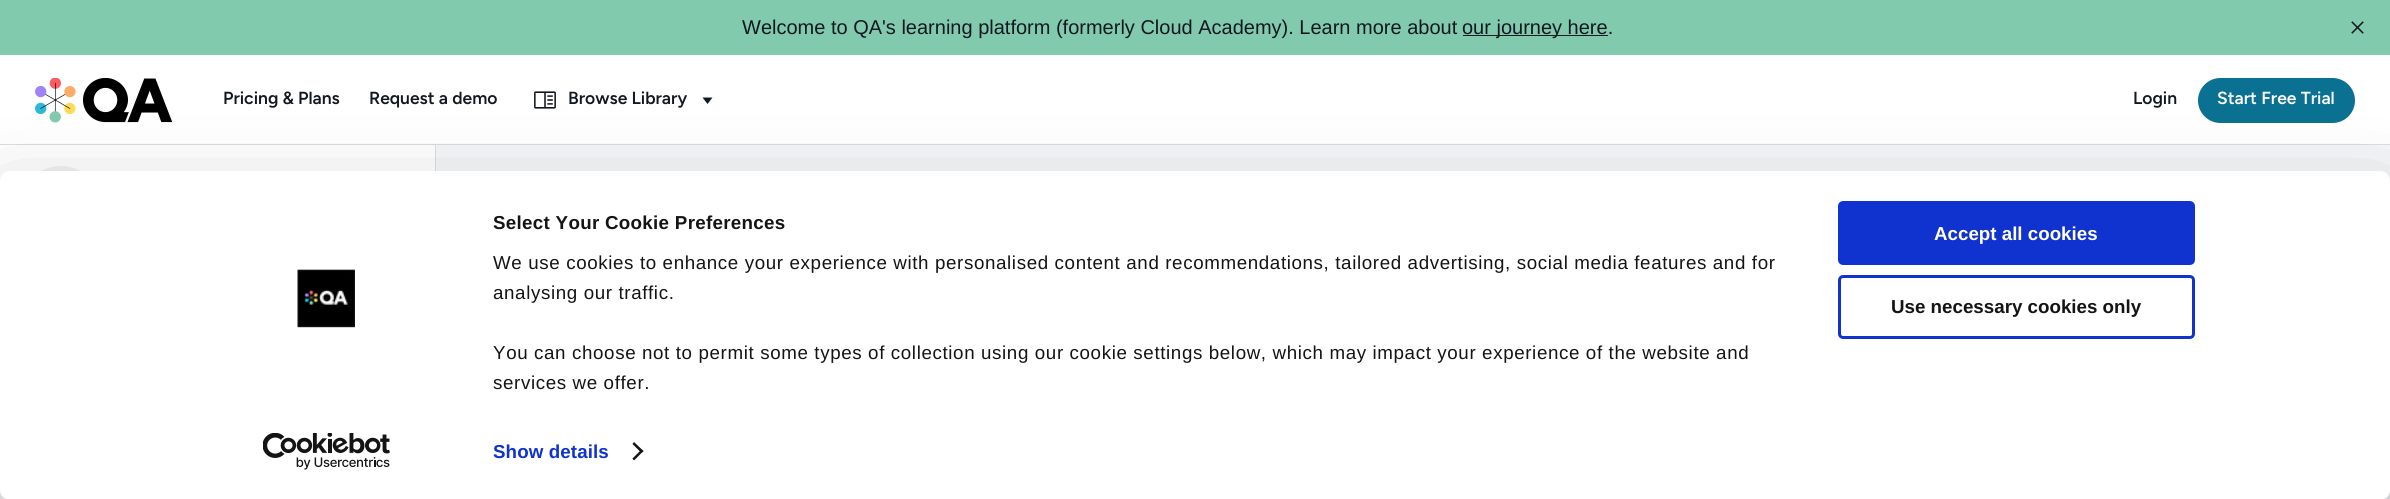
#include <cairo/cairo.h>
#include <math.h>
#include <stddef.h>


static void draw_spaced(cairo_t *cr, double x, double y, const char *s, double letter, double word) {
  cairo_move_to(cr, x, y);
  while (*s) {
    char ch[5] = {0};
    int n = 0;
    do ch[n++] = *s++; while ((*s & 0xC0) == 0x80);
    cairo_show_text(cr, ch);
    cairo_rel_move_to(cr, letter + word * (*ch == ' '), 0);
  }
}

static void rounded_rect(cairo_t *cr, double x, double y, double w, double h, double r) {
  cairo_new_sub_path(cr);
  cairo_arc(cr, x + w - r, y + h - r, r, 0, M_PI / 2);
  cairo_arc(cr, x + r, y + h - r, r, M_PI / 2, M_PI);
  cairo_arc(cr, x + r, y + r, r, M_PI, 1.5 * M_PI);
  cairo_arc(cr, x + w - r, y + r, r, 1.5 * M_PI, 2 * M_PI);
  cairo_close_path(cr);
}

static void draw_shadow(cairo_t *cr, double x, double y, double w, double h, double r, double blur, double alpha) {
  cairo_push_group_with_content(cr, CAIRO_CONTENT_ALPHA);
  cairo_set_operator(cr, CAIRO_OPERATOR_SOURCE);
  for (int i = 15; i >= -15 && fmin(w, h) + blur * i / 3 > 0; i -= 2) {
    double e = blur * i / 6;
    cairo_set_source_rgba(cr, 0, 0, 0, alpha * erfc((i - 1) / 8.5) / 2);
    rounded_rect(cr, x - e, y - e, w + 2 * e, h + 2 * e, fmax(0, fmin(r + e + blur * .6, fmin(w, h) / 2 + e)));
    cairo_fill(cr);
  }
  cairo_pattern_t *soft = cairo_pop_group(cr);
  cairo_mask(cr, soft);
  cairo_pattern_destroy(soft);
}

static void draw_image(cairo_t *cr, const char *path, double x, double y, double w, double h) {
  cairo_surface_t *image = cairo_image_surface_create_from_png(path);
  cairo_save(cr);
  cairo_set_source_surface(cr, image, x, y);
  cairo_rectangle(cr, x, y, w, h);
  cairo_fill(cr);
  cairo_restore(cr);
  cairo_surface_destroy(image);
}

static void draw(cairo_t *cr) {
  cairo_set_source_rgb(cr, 1, 1, 1);
  cairo_paint(cr);
  cairo_set_source_rgb(cr, 130 / 255.0, 202 / 255.0, 174 / 255.0);
  cairo_rectangle(cr, 0, 0, 2390, 55);
  cairo_fill(cr);
  cairo_set_source_rgb(cr, 17 / 255.0, 24 / 255.0, 32 / 255.0);
  cairo_rectangle(cr, 1463, 35, 145, 1);
  cairo_fill(cr);
  draw_image(cr, "images/1.png", 2351, 21, 13, 13);
  cairo_set_source_rgb(cr, 218 / 255.0, 222 / 255.0, 227 / 255.0);
  cairo_rectangle(cr, 0, 144, 2390, 1);
  cairo_fill(cr);
  draw_image(cr, "images/2.png", 35, 78, 137, 45);
  draw_image(cr, "images/3.png", 534, 91, 22, 18);
  cairo_set_source_rgb(cr, 17 / 255.0, 24 / 255.0, 32 / 255.0);
  cairo_new_path(cr);
  cairo_move_to(cr, 712.5, 97.5);
  cairo_line_to(cr, 707.5, 104);
  cairo_line_to(cr, 702.5, 97.5);
  cairo_close_path(cr);
  cairo_fill(cr);
  cairo_set_source_rgb(cr, 11 / 255.0, 113 / 255.0, 146 / 255.0);
  rounded_rect(cr, 2198, 78, 157, 45, 22.5);
  cairo_fill(cr);
  cairo_set_source_rgb(cr, 246 / 255.0, 247 / 255.0, 248 / 255.0);
  cairo_rectangle(cr, 436, 145, 1954, 354);
  cairo_fill(cr);
  cairo_set_source_rgb(cr, 218 / 255.0, 222 / 255.0, 227 / 255.0);
  cairo_rectangle(cr, 435, 145, 1, 26);
  cairo_fill(cr);
  cairo_set_source_rgb(cr, 237 / 255.0, 239 / 255.0, 241 / 255.0);
  cairo_arc(cr, 61, 206, 40, 0, 2 * M_PI);
  cairo_fill(cr);
  cairo_set_source_rgb(cr, 0, 0, 0);
  draw_shadow(cr, 0, 209, 2390, 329, 10, 44, 0.3);
  cairo_set_source_rgb(cr, 1, 1, 1);
  rounded_rect(cr, 0, 171, 2390, 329, 10);
  cairo_fill(cr);
  draw_image(cr, "images/4.png", 297, 269, 58, 59);
  draw_image(cr, "images/5.png", 263, 433, 127, 37);
  cairo_set_source_rgb(cr, 20 / 255.0, 20 / 255.0, 20 / 255.0);
  cairo_new_path(cr);
  cairo_move_to(cr, 634, 442);
  cairo_line_to(cr, 643.5, 451);
  cairo_line_to(cr, 641.5, 453);
  cairo_line_to(cr, 632.5, 444);
  cairo_close_path(cr);
  cairo_fill(cr);
  cairo_new_path(cr);
  cairo_move_to(cr, 641.5, 449.5);
  cairo_line_to(cr, 643.5, 451);
  cairo_line_to(cr, 634, 460.5);
  cairo_line_to(cr, 632.5, 458.5);
  cairo_close_path(cr);
  cairo_fill(cr);
  cairo_set_source_rgb(cr, 16 / 255.0, 50 / 255.0, 207 / 255.0);
  rounded_rect(cr, 1839.5, 202.5, 354, 61, 3.5);
  cairo_fill_preserve(cr);
  cairo_set_line_width(cr, 3);
  cairo_stroke(cr);
  rounded_rect(cr, 1839.5, 276.5, 354, 61, 3.5);
  cairo_stroke(cr);
  cairo_select_font_face(cr, "Liberation Sans", CAIRO_FONT_SLANT_NORMAL, CAIRO_FONT_WEIGHT_NORMAL);
  cairo_set_font_size(cr, 20);
  cairo_set_source_rgb(cr, 17 / 255.0, 24 / 255.0, 32 / 255.0);
  cairo_move_to(cr, 742, 34);
  cairo_show_text(cr, "Welcome to QA's learning platform (formerly Cloud Academy). Learn more about");
  cairo_move_to(cr, 1462, 34);
  cairo_show_text(cr, "our journey here.");
  cairo_select_font_face(cr, "Figtree SemiBold", CAIRO_FONT_SLANT_NORMAL, CAIRO_FONT_WEIGHT_NORMAL);
  cairo_set_font_size(cr, 17.5);
  cairo_move_to(cr, 223, 104);
  cairo_show_text(cr, "Pricing & Plans");
  cairo_move_to(cr, 369, 104);
  cairo_show_text(cr, "Request a demo");
  cairo_move_to(cr, 568, 104);
  cairo_show_text(cr, "Browse Library");
  cairo_move_to(cr, 2133, 104);
  cairo_show_text(cr, "Login");
  cairo_set_source_rgb(cr, 1, 1, 1);
  cairo_move_to(cr, 2217, 104);
  cairo_show_text(cr, "Start Free Trial");
  cairo_select_font_face(cr, "Liberation Sans", CAIRO_FONT_SLANT_NORMAL, CAIRO_FONT_WEIGHT_BOLD);
  cairo_set_font_size(cr, 18.75);
  cairo_set_source_rgb(cr, 20 / 255.0, 20 / 255.0, 20 / 255.0);
  draw_spaced(cr, 493, 229, "Select Your Cookie Preferences", 0.3, 0);
  cairo_select_font_face(cr, "Liberation Sans", CAIRO_FONT_SLANT_NORMAL, CAIRO_FONT_WEIGHT_NORMAL);
  draw_spaced(cr, 493, 269, "We use cookies to enhance your experience with personalised content and recommendations, tailored advertising, social media features and for", 0.62, 0);
  draw_spaced(cr, 493, 299, "analysing our traffic.", 0.62, 0);
  draw_spaced(cr, 493, 359, "You can choose not to permit some types of collection using our cookie settings below, which may impact your experience of the website and", 0.62, 0);
  draw_spaced(cr, 493, 389, "services we offer.", 0.62, 0);
  cairo_select_font_face(cr, "Liberation Sans", CAIRO_FONT_SLANT_NORMAL, CAIRO_FONT_WEIGHT_BOLD);
  cairo_set_source_rgb(cr, 16 / 255.0, 50 / 255.0, 207 / 255.0);
  draw_spaced(cr, 493, 458, "Show details", 0.1, 0);
  cairo_set_source_rgb(cr, 1, 1, 1);
  cairo_move_to(cr, 1934, 240);
  cairo_show_text(cr, "Accept all cookies");
  cairo_set_source_rgb(cr, 20 / 255.0, 20 / 255.0, 20 / 255.0);
  cairo_move_to(cr, 1891, 313);
  cairo_show_text(cr, "Use necessary cookies only");
}

int main(void) {
  cairo_surface_t *surface = cairo_image_surface_create(CAIRO_FORMAT_RGB24, 2390, 499);
  cairo_t *cr = cairo_create(surface);
  cairo_font_options_t *options = cairo_font_options_create();
  cairo_font_options_set_hint_metrics(options, CAIRO_HINT_METRICS_OFF);
  cairo_font_options_set_hint_style(options, CAIRO_HINT_STYLE_NONE);
  cairo_set_font_options(cr, options);
  cairo_set_miter_limit(cr, 4);
  draw(cr);
  cairo_surface_write_to_png(surface, "out.png");
  cairo_font_options_destroy(options);
  cairo_destroy(cr);
  cairo_surface_destroy(surface);
  return 0;
}
